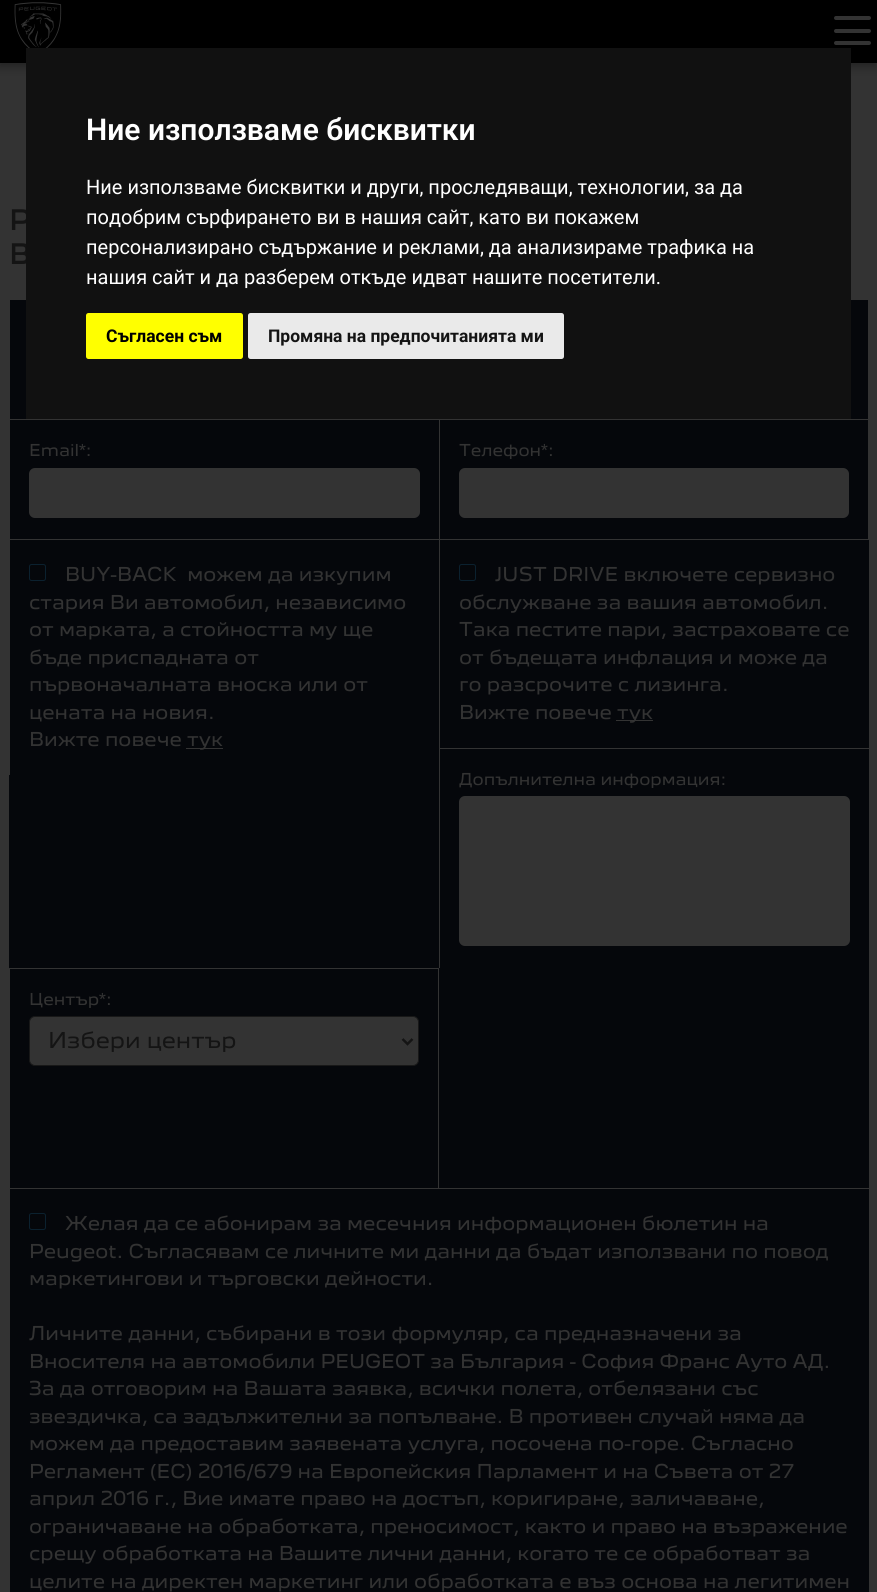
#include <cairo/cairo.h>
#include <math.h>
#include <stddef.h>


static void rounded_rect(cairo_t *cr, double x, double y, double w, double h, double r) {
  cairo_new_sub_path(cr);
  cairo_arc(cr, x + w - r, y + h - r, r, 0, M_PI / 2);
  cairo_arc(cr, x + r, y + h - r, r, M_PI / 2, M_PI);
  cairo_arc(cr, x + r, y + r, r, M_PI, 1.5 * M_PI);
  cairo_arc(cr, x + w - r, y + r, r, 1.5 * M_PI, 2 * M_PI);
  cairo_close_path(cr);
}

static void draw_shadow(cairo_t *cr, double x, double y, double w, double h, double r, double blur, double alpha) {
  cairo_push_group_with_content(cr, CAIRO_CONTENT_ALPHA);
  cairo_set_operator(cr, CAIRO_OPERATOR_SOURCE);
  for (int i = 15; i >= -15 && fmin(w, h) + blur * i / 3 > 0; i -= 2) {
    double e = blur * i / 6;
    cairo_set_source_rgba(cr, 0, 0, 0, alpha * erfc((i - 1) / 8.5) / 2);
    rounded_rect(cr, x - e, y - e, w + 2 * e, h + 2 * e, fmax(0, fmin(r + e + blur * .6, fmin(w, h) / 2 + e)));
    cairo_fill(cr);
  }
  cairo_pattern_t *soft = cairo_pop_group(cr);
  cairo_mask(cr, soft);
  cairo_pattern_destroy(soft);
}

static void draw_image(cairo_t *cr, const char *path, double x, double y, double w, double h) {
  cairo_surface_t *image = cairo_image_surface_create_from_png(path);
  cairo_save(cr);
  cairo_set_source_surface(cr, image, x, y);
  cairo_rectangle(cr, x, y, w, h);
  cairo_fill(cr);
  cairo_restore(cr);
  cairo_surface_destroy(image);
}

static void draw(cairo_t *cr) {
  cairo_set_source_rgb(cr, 51 / 255.0, 51 / 255.0, 51 / 255.0);
  cairo_paint(cr);
  cairo_set_source_rgb(cr, 0, 0, 0);
  draw_shadow(cr, -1, 4, 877, 62, 0, 5.5, 0.38);
  cairo_set_source_rgb(cr, 0, 0, 0);
  cairo_rectangle(cr, 0, 0, 877, 63);
  cairo_fill(cr);
  draw_image(cr, "images/1.png", 14, 2, 48, 46);
  cairo_set_source_rgb(cr, 51 / 255.0, 51 / 255.0, 51 / 255.0);
  rounded_rect(cr, 834, 29, 37, 4, 2);
  cairo_fill(cr);
  rounded_rect(cr, 834, 16, 37, 4, 2);
  cairo_fill(cr);
  rounded_rect(cr, 834, 41, 37, 4, 2);
  cairo_fill(cr);
  cairo_set_source_rgb(cr, 5 / 255.0, 7 / 255.0, 11 / 255.0);
  cairo_rectangle(cr, 9, 300, 860, 1292);
  cairo_fill(cr);
  cairo_set_source_rgb(cr, 51 / 255.0, 51 / 255.0, 51 / 255.0);
  cairo_rectangle(cr, 9, 299, 1, 120);
  cairo_fill(cr);
  cairo_rectangle(cr, 868, 299, 1, 120);
  cairo_fill(cr);
  cairo_rectangle(cr, 9, 419, 860, 1);
  cairo_fill(cr);
  cairo_rectangle(cr, 9, 419, 1, 120);
  cairo_fill(cr);
  rounded_rect(cr, 29, 468, 391, 50, 6);
  cairo_fill(cr);
  cairo_rectangle(cr, 868, 419, 1, 120);
  cairo_fill(cr);
  cairo_rectangle(cr, 439, 419, 1, 120);
  cairo_fill(cr);
  rounded_rect(cr, 459, 468, 390, 50, 6);
  cairo_fill(cr);
  cairo_rectangle(cr, 9, 539, 860, 1);
  cairo_fill(cr);
  cairo_rectangle(cr, 9, 539, 1, 236);
  cairo_fill(cr);
  rounded_rect(cr, 29.5, 564.5, 16, 16, 2);
  cairo_set_source_rgb(cr, 11 / 255.0, 33 / 255.0, 47 / 255.0);
  cairo_set_line_width(cr, 1);
  cairo_stroke(cr);
  cairo_set_source_rgb(cr, 51 / 255.0, 51 / 255.0, 51 / 255.0);
  cairo_rectangle(cr, 186, 748, 37, 1);
  cairo_fill(cr);
  cairo_rectangle(cr, 439, 539, 1, 209);
  cairo_fill(cr);
  rounded_rect(cr, 459.5, 564.5, 16, 16, 2);
  cairo_set_source_rgb(cr, 11 / 255.0, 33 / 255.0, 47 / 255.0);
  cairo_stroke(cr);
  cairo_set_source_rgb(cr, 51 / 255.0, 51 / 255.0, 51 / 255.0);
  cairo_rectangle(cr, 616, 720, 37, 1);
  cairo_fill(cr);
  cairo_rectangle(cr, 439, 748, 430, 1);
  cairo_fill(cr);
  cairo_rectangle(cr, 439, 748, 1, 220);
  cairo_fill(cr);
  rounded_rect(cr, 459, 796, 391, 150, 6);
  cairo_fill(cr);
  cairo_rectangle(cr, 9, 968, 430, 1);
  cairo_fill(cr);
  cairo_rectangle(cr, 438, 968, 1, 220);
  cairo_fill(cr);
  cairo_rectangle(cr, 9, 968, 1, 220);
  cairo_fill(cr);
  rounded_rect(cr, 29.5, 1016.5, 389, 49, 5.5);
  cairo_fill_preserve(cr);
  cairo_set_source_rgb(cr, 24 / 255.0, 24 / 255.0, 24 / 255.0);
  cairo_stroke(cr);
  cairo_new_path(cr);
  cairo_move_to(cr, 402.5, 1039);
  cairo_line_to(cr, 407.5, 1044);
  cairo_line_to(cr, 412.5, 1039);
  cairo_set_source_rgb(cr, 20 / 255.0, 20 / 255.0, 20 / 255.0);
  cairo_set_line_width(cr, 2.5);
  cairo_stroke(cr);
  cairo_set_source_rgb(cr, 51 / 255.0, 51 / 255.0, 51 / 255.0);
  cairo_rectangle(cr, 9, 1188, 860, 1);
  cairo_fill(cr);
  cairo_rectangle(cr, 9, 1188, 1, 404);
  cairo_fill(cr);
  rounded_rect(cr, 29.5, 1213.5, 16, 16, 2);
  cairo_set_source_rgb(cr, 11 / 255.0, 33 / 255.0, 47 / 255.0);
  cairo_set_line_width(cr, 1);
  cairo_stroke(cr);
  cairo_select_font_face(cr, "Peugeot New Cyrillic", CAIRO_FONT_SLANT_NORMAL, CAIRO_FONT_WEIGHT_BOLD);
  cairo_set_font_size(cr, 25);
  cairo_set_source_rgb(cr, 20 / 255.0, 20 / 255.0, 20 / 255.0);
  cairo_move_to(cr, 9, 230);
  cairo_show_text(cr, "Р");
  cairo_move_to(cr, 9, 264);
  cairo_show_text(cr, "В");
  cairo_set_source_rgb(cr, 17 / 255.0, 17 / 255.0, 17 / 255.0);
  cairo_rectangle(cr, 26, 48, 825, 371);
  cairo_fill(cr);
  cairo_set_source_rgb(cr, 234 / 255.0, 234 / 255.0, 234 / 255.0);
  rounded_rect(cr, 248, 313, 316, 46, 2.5);
  cairo_fill(cr);
  cairo_select_font_face(cr, "Roboto", CAIRO_FONT_SLANT_NORMAL, CAIRO_FONT_WEIGHT_BOLD);
  cairo_set_font_size(cr, 17.5);
  cairo_set_source_rgb(cr, 20 / 255.0, 20 / 255.0, 20 / 255.0);
  cairo_move_to(cr, 268, 342);
  cairo_show_text(cr, "Промяна на предпочитанията ми");
  cairo_set_source_rgb(cr, 1, 1, 0);
  rounded_rect(cr, 86, 313, 157, 46, 2.5);
  cairo_fill(cr);
  cairo_set_source_rgb(cr, 0, 0, 0);
  cairo_move_to(cr, 106, 342);
  cairo_show_text(cr, "Съгласен съм");
  cairo_select_font_face(cr, "Roboto", CAIRO_FONT_SLANT_NORMAL, CAIRO_FONT_WEIGHT_NORMAL);
  cairo_set_font_size(cr, 20);
  cairo_set_source_rgb(cr, 1, 1, 1);
  cairo_move_to(cr, 86, 284);
  cairo_show_text(cr, "нашия сайт и да разберем откъде идват нашите посетители.");
  cairo_move_to(cr, 86, 254);
  cairo_show_text(cr, "персонализирано съдържание и реклами, да анализираме трафика на");
  cairo_move_to(cr, 86, 224);
  cairo_show_text(cr, "подобрим сърфирането ви в нашия сайт, като ви покажем");
  cairo_move_to(cr, 86, 194);
  cairo_show_text(cr, "Ние използваме бисквитки и други, проследяващи, технологии, за да");
  cairo_select_font_face(cr, "Roboto SemiBold", CAIRO_FONT_SLANT_NORMAL, CAIRO_FONT_WEIGHT_NORMAL);
  cairo_set_font_size(cr, 30);
  cairo_move_to(cr, 86, 140);
  cairo_show_text(cr, "Ние използваме бисквитки");
  cairo_select_font_face(cr, "Peugeot New Cyrillic", CAIRO_FONT_SLANT_NORMAL, CAIRO_FONT_WEIGHT_NORMAL);
  cairo_set_font_size(cr, 15);
  cairo_set_source_rgb(cr, 51 / 255.0, 51 / 255.0, 51 / 255.0);
  cairo_move_to(cr, 29, 456);
  cairo_show_text(cr, "Email*:");
  cairo_move_to(cr, 459, 456);
  cairo_show_text(cr, "Телефон*:");
  cairo_set_font_size(cr, 17.5);
  cairo_move_to(cr, 65, 581);
  cairo_show_text(cr, "BUY-BACK  можем да изкупим");
  cairo_move_to(cr, 29, 609);
  cairo_show_text(cr, "стария Ви автомобил, независимо");
  cairo_move_to(cr, 29, 636);
  cairo_show_text(cr, "от марката, а стойността му ще");
  cairo_move_to(cr, 29, 664);
  cairo_show_text(cr, "бъде приспадната от");
  cairo_move_to(cr, 29, 691);
  cairo_show_text(cr, "първоначалната вноска или от");
  cairo_move_to(cr, 29, 719);
  cairo_show_text(cr, "цената на новия.");
  cairo_move_to(cr, 29, 746);
  cairo_show_text(cr, "Вижте повече");
  cairo_move_to(cr, 187, 746);
  cairo_show_text(cr, "тук");
  cairo_move_to(cr, 495, 581);
  cairo_show_text(cr, "JUST DRIVE включете сервизно");
  cairo_move_to(cr, 459, 609);
  cairo_show_text(cr, "обслужване за вашия автомобил.");
  cairo_move_to(cr, 459, 636);
  cairo_show_text(cr, "Така пестите пари, застраховате се");
  cairo_move_to(cr, 459, 664);
  cairo_show_text(cr, "от бъдещата инфлация и може да");
  cairo_move_to(cr, 459, 691);
  cairo_show_text(cr, "го разсрочите с лизинга.");
  cairo_move_to(cr, 459, 719);
  cairo_show_text(cr, "Вижте повече");
  cairo_move_to(cr, 617, 719);
  cairo_show_text(cr, "тук");
  cairo_set_font_size(cr, 15);
  cairo_move_to(cr, 459, 785);
  cairo_show_text(cr, "Допълнителна информация:");
  cairo_move_to(cr, 29, 1005);
  cairo_show_text(cr, "Център*:");
  cairo_set_font_size(cr, 20);
  cairo_set_source_rgb(cr, 20 / 255.0, 20 / 255.0, 20 / 255.0);
  cairo_move_to(cr, 48, 1048);
  cairo_show_text(cr, "Избери център");
  cairo_set_font_size(cr, 17.5);
  cairo_set_source_rgb(cr, 51 / 255.0, 51 / 255.0, 51 / 255.0);
  cairo_move_to(cr, 65, 1230);
  cairo_show_text(cr, "Желая да се абонирам за месечния информационен бюлетин на");
  cairo_move_to(cr, 29, 1258);
  cairo_show_text(cr, "Peugeot. Съгласявам се личните ми данни да бъдат използвани по повод");
  cairo_move_to(cr, 29, 1285);
  cairo_show_text(cr, "маркетингови и търговски дейности.");
  cairo_move_to(cr, 29, 1340);
  cairo_show_text(cr, "Личните данни, събирани в този формуляр, са предназначени за");
  cairo_move_to(cr, 29, 1368);
  cairo_show_text(cr, "Вносителя на автомобили PEUGEOT за България - София Франс Ауто АД.");
  cairo_move_to(cr, 29, 1395);
  cairo_show_text(cr, "За да отговорим на Вашата заявка, всички полета, отбелязани със");
  cairo_move_to(cr, 29, 1423);
  cairo_show_text(cr, "звездичка, са задължителни за попълване. В противен случай няма да");
  cairo_move_to(cr, 29, 1450);
  cairo_show_text(cr, "можем да предоставим заявената услуга, посочена по-горе. Съгласно");
  cairo_move_to(cr, 29, 1478);
  cairo_show_text(cr, "Регламент (ЕС) 2016/679 на Европейския Парламент и на Съвета от 27");
  cairo_move_to(cr, 29, 1505);
  cairo_show_text(cr, "април 2016 г., Вие имате право на достъп, коригиране, заличаване,");
  cairo_move_to(cr, 29, 1533);
  cairo_show_text(cr, "ограничаване на обработката, преносимост, както и право на възражение");
  cairo_move_to(cr, 29, 1560);
  cairo_show_text(cr, "срещу обработката на Вашите лични данни, когато те се обработват за");
  cairo_move_to(cr, 29, 1588);
  cairo_show_text(cr, "целите на директен маркетинг или обработката е въз основа на легитимен");
}

int main(void) {
  cairo_surface_t *surface = cairo_image_surface_create(CAIRO_FORMAT_RGB24, 877, 1592);
  cairo_t *cr = cairo_create(surface);
  cairo_font_options_t *options = cairo_font_options_create();
  cairo_font_options_set_hint_metrics(options, CAIRO_HINT_METRICS_OFF);
  cairo_font_options_set_hint_style(options, CAIRO_HINT_STYLE_NONE);
  cairo_set_font_options(cr, options);
  cairo_set_miter_limit(cr, 4);
  draw(cr);
  cairo_surface_write_to_png(surface, "out.png");
  cairo_font_options_destroy(options);
  cairo_destroy(cr);
  cairo_surface_destroy(surface);
  return 0;
}
